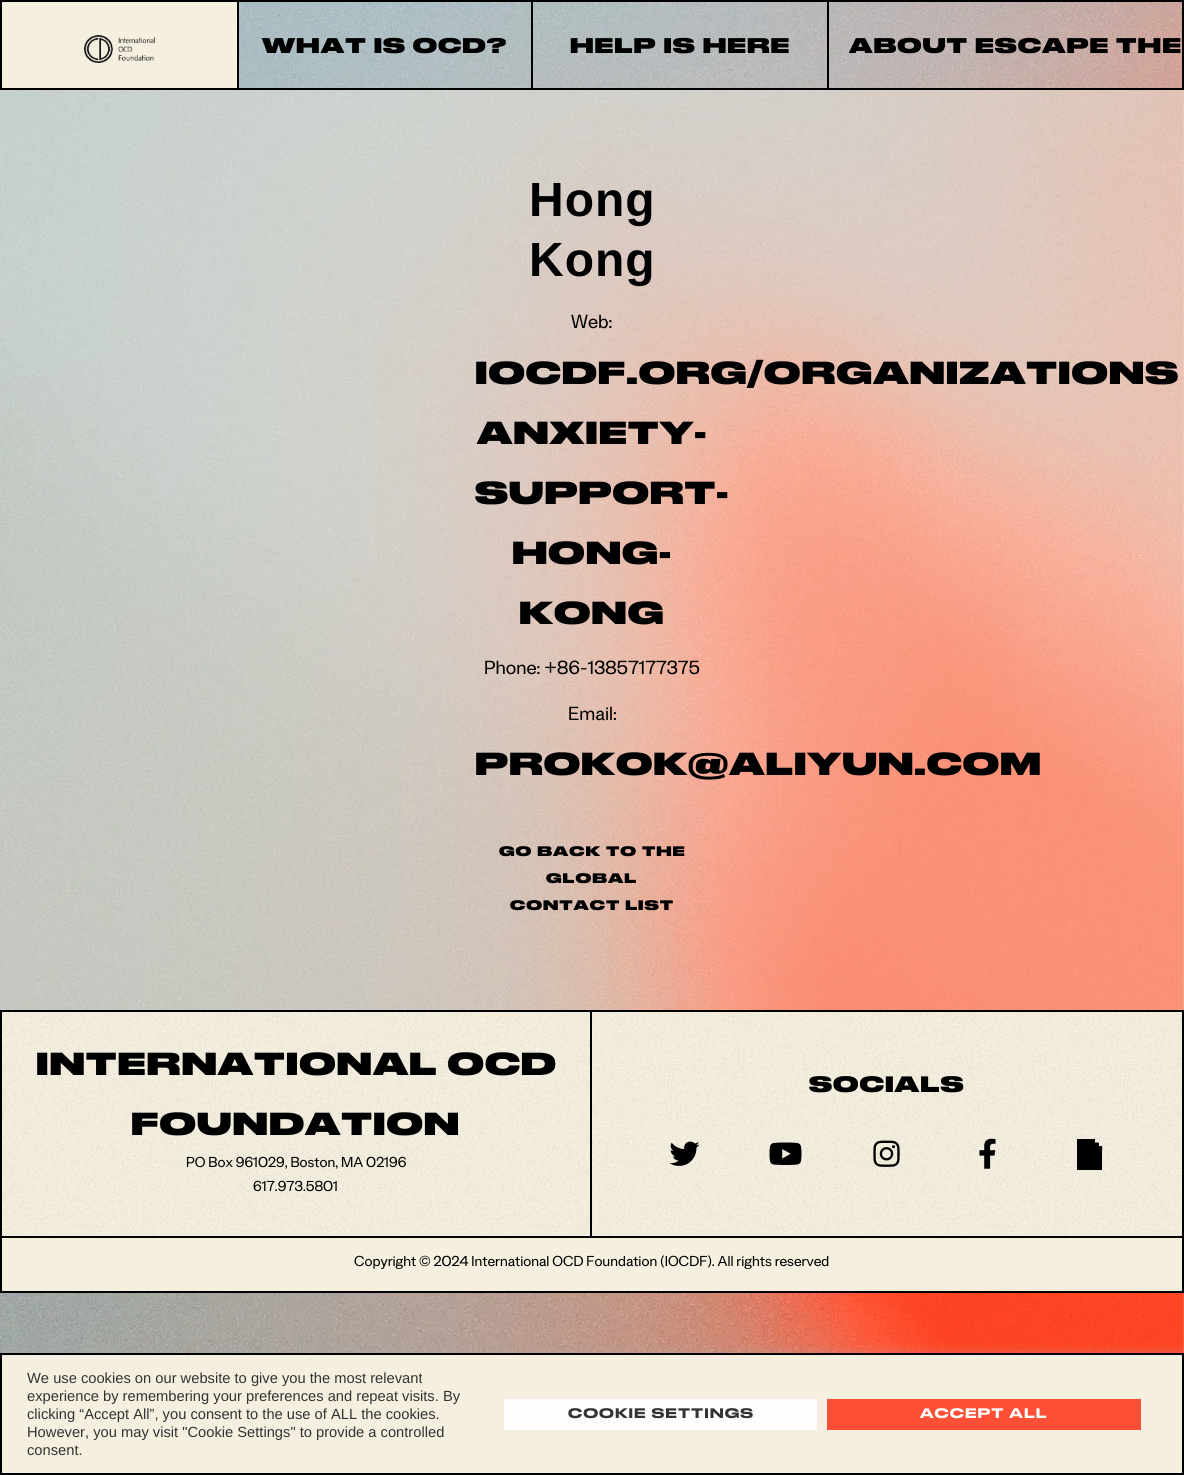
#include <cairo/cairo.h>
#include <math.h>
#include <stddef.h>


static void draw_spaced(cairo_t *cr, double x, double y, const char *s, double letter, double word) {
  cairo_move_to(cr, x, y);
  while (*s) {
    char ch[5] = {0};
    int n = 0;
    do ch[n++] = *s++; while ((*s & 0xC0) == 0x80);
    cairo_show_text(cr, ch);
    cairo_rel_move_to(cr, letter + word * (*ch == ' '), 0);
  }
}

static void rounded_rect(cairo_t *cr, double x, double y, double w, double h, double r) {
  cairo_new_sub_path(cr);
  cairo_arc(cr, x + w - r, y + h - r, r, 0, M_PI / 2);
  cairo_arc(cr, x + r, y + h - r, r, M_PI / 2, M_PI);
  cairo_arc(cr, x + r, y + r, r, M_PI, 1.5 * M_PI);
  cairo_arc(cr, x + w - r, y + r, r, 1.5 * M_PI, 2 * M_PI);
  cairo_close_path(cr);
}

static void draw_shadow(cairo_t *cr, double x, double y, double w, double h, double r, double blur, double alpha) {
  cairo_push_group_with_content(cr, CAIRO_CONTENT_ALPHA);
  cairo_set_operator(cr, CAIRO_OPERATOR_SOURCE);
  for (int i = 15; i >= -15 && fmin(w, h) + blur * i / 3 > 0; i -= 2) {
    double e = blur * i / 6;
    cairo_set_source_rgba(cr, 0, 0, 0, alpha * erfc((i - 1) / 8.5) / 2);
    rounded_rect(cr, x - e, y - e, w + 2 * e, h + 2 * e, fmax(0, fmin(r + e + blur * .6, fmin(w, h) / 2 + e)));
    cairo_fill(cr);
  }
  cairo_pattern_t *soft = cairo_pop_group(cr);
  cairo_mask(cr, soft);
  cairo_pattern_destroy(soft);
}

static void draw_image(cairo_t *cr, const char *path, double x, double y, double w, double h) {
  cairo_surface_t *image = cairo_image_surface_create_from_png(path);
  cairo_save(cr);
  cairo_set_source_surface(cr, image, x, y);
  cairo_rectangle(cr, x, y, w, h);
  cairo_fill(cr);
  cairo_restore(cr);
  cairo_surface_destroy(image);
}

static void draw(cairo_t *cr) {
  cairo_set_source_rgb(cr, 1, 1, 1);
  cairo_paint(cr);
  draw_image(cr, "images/1.png", 0, 2, 1184, 1351);
  cairo_set_source_rgb(cr, 245 / 255.0, 239 / 255.0, 224 / 255.0);
  cairo_rectangle(cr, 2, 2, 235, 86);
  cairo_fill(cr);
  cairo_set_source_rgb(cr, 0, 0, 0);
  cairo_rectangle(cr, 0, 0, 237, 2);
  cairo_fill(cr);
  cairo_rectangle(cr, 0, 88, 237, 2);
  cairo_fill(cr);
  cairo_rectangle(cr, 0, 0, 2, 90);
  cairo_fill(cr);
  draw_image(cr, "images/2.png", 84, 35, 71, 28);
  cairo_rectangle(cr, 238, 1, 294, 88);
  cairo_stroke(cr);
  cairo_rectangle(cr, 533, 0, 651, 2);
  cairo_fill(cr);
  cairo_rectangle(cr, 827, 0, 2, 90);
  cairo_fill(cr);
  cairo_rectangle(cr, 533, 88, 296, 2);
  cairo_fill(cr);
  cairo_rectangle(cr, 1182, 0, 2, 90);
  cairo_fill(cr);
  cairo_rectangle(cr, 829, 88, 355, 2);
  cairo_fill(cr);
  cairo_set_source_rgba(cr, 245 / 255.0, 239 / 255.0, 224 / 255.0, 0.42);
  cairo_rectangle(cr, 0, 90, 1184, 920);
  cairo_fill(cr);
  cairo_set_source_rgb(cr, 245 / 255.0, 239 / 255.0, 224 / 255.0);
  cairo_rectangle(cr, 2, 1012, 1180, 224);
  cairo_fill(cr);
  draw_image(cr, "images/3.png", 2, 1012, 1180, 224);
  cairo_rectangle(cr, 1, 1011, 590, 226);
  cairo_set_source_rgb(cr, 0, 0, 0);
  cairo_stroke(cr);
  cairo_rectangle(cr, 592, 1010, 592, 2);
  cairo_fill(cr);
  cairo_rectangle(cr, 1182, 1010, 2, 283);
  cairo_fill(cr);
  cairo_rectangle(cr, 592, 1236, 592, 2);
  cairo_fill(cr);
  draw_image(cr, "images/4.png", 669, 1141, 31, 25);
  draw_image(cr, "images/5.png", 769, 1142, 33, 23);
  draw_image(cr, "images/6.png", 873, 1140, 27, 27);
  draw_image(cr, "images/7.png", 979, 1138, 17, 31);
  draw_image(cr, "images/8.png", 1077, 1139, 26, 31);
  cairo_set_source_rgb(cr, 245 / 255.0, 239 / 255.0, 224 / 255.0);
  cairo_rectangle(cr, 2, 1238, 1180, 53);
  cairo_fill(cr);
  cairo_set_source_rgb(cr, 0, 0, 0);
  cairo_rectangle(cr, 0, 1291, 1184, 2);
  cairo_fill(cr);
  cairo_rectangle(cr, 0, 1238, 2, 55);
  cairo_fill(cr);
  cairo_set_source_rgb(cr, 172 / 255.0, 171 / 255.0, 171 / 255.0);
  draw_shadow(cr, 0, 1352, 1184, 122, 0, 5, 0.3);
  cairo_set_source_rgb(cr, 245 / 255.0, 239 / 255.0, 224 / 255.0);
  cairo_rectangle(cr, 1, 1354, 1182, 120);
  cairo_fill_preserve(cr);
  cairo_set_source_rgb(cr, 0, 0, 0);
  cairo_stroke(cr);
  cairo_set_source_rgb(cr, 1, 252 / 255.0, 252 / 255.0);
  cairo_rectangle(cr, 504, 1399, 313, 31);
  cairo_fill(cr);
  cairo_set_source_rgb(cr, 252 / 255.0, 79 / 255.0, 53 / 255.0);
  cairo_rectangle(cr, 827, 1399, 314, 31);
  cairo_fill(cr);
  cairo_select_font_face(cr, "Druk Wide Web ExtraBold", CAIRO_FONT_SLANT_NORMAL, CAIRO_FONT_WEIGHT_NORMAL);
  cairo_set_font_size(cr, 20);
  cairo_set_source_rgb(cr, 0, 0, 0);
  draw_spaced(cr, 262, 53, "WHAT IS OCD?", 1, 0);
  draw_spaced(cr, 570, 53, "HELP IS HERE", 1, 0);
  draw_spaced(cr, 849, 53, "ABOUT ESCAPE THE", 1, 0);
  cairo_select_font_face(cr, "Liberation Sans", CAIRO_FONT_SLANT_NORMAL, CAIRO_FONT_WEIGHT_BOLD);
  cairo_set_font_size(cr, 48);
  draw_spaced(cr, 529, 216, "Hong", 1, 0);
  draw_spaced(cr, 529, 276, "Kong", 1, 0);
  cairo_select_font_face(cr, "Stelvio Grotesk", CAIRO_FONT_SLANT_NORMAL, CAIRO_FONT_WEIGHT_NORMAL);
  cairo_set_font_size(cr, 21);
  cairo_move_to(cr, 571, 328);
  cairo_show_text(cr, "Web:");
  cairo_select_font_face(cr, "Druk Wide Web ExtraBold", CAIRO_FONT_SLANT_NORMAL, CAIRO_FONT_WEIGHT_NORMAL);
  cairo_set_font_size(cr, 30);
  draw_spaced(cr, 475, 384, "IOCDF.ORG/ORGANIZATIONS", 1, 0);
  draw_spaced(cr, 477, 444, "ANXIETY-", 1, 0);
  draw_spaced(cr, 475, 504, "SUPPORT-", 1, 0);
  draw_spaced(cr, 512, 564, "HONG-", 1, 0);
  draw_spaced(cr, 519, 624, "KONG", 1, 0);
  cairo_select_font_face(cr, "Stelvio Grotesk", CAIRO_FONT_SLANT_NORMAL, CAIRO_FONT_WEIGHT_NORMAL);
  cairo_set_font_size(cr, 21);
  cairo_move_to(cr, 484, 674);
  cairo_show_text(cr, "Phone: +86-13857177375");
  cairo_move_to(cr, 568, 720);
  cairo_show_text(cr, "Email:");
  cairo_select_font_face(cr, "Druk Wide Web ExtraBold", CAIRO_FONT_SLANT_NORMAL, CAIRO_FONT_WEIGHT_NORMAL);
  cairo_set_font_size(cr, 30);
  draw_spaced(cr, 475, 775, "PROKOK@ALIYUN.COM", 1, 0);
  cairo_set_font_size(cr, 13);
  draw_spaced(cr, 499, 856, "GO BACK TO THE", 1, 0);
  draw_spaced(cr, 546, 883, "GLOBAL", 1, 0);
  draw_spaced(cr, 510, 910, "CONTACT LIST", 1, 0);
  cairo_set_font_size(cr, 30);
  draw_spaced(cr, 36, 1075, "INTERNATIONAL OCD", 1, 0);
  draw_spaced(cr, 131, 1135, "FOUNDATION", 1, 0);
  cairo_select_font_face(cr, "Stelvio Grotesk", CAIRO_FONT_SLANT_NORMAL, CAIRO_FONT_WEIGHT_NORMAL);
  cairo_set_font_size(cr, 16);
  cairo_move_to(cr, 186, 1167);
  cairo_show_text(cr, "PO Box 961029, Boston, MA 02196");
  cairo_move_to(cr, 253, 1191);
  cairo_show_text(cr, "617.973.5801");
  cairo_select_font_face(cr, "Druk Wide Web ExtraBold", CAIRO_FONT_SLANT_NORMAL, CAIRO_FONT_WEIGHT_NORMAL);
  cairo_set_font_size(cr, 21);
  draw_spaced(cr, 809, 1092, "SOCIALS", 1, 0);
  cairo_select_font_face(cr, "Stelvio Grotesk", CAIRO_FONT_SLANT_NORMAL, CAIRO_FONT_WEIGHT_NORMAL);
  cairo_set_font_size(cr, 16);
  cairo_move_to(cr, 354, 1266);
  cairo_show_text(cr, "Copyright © 2024 International OCD Foundation (IOCDF). All rights reserved");
  cairo_select_font_face(cr, "Liberation Sans", CAIRO_FONT_SLANT_NORMAL, CAIRO_FONT_WEIGHT_NORMAL);
  cairo_set_font_size(cr, 14.7);
  cairo_set_source_rgb(cr, 51 / 255.0, 51 / 255.0, 51 / 255.0);
  cairo_move_to(cr, 27, 1383);
  cairo_show_text(cr, "We use cookies on our website to give you the most relevant");
  cairo_move_to(cr, 27, 1401);
  cairo_show_text(cr, "experience by remembering your preferences and repeat visits. By");
  cairo_move_to(cr, 27, 1419);
  cairo_show_text(cr, "clicking “Accept All”, you consent to the use of ALL the cookies.");
  cairo_move_to(cr, 27, 1437);
  cairo_show_text(cr, "However, you may visit \"Cookie Settings\" to provide a controlled");
  cairo_move_to(cr, 27, 1455);
  cairo_show_text(cr, "consent.");
  cairo_select_font_face(cr, "Druk Wide Web Medium", CAIRO_FONT_SLANT_NORMAL, CAIRO_FONT_WEIGHT_NORMAL);
  cairo_set_font_size(cr, 13);
  draw_spaced(cr, 568, 1418, "COOKIE SETTINGS", 1, 0);
  cairo_set_source_rgb(cr, 1, 1, 1);
  draw_spaced(cr, 920, 1418, "ACCEPT ALL", 1, 0);
}

int main(void) {
  cairo_surface_t *surface = cairo_image_surface_create(CAIRO_FORMAT_RGB24, 1184, 1475);
  cairo_t *cr = cairo_create(surface);
  cairo_font_options_t *options = cairo_font_options_create();
  cairo_font_options_set_hint_metrics(options, CAIRO_HINT_METRICS_OFF);
  cairo_font_options_set_hint_style(options, CAIRO_HINT_STYLE_NONE);
  cairo_set_font_options(cr, options);
  cairo_set_miter_limit(cr, 4);
  draw(cr);
  cairo_surface_write_to_png(surface, "out.png");
  cairo_font_options_destroy(options);
  cairo_destroy(cr);
  cairo_surface_destroy(surface);
  return 0;
}
